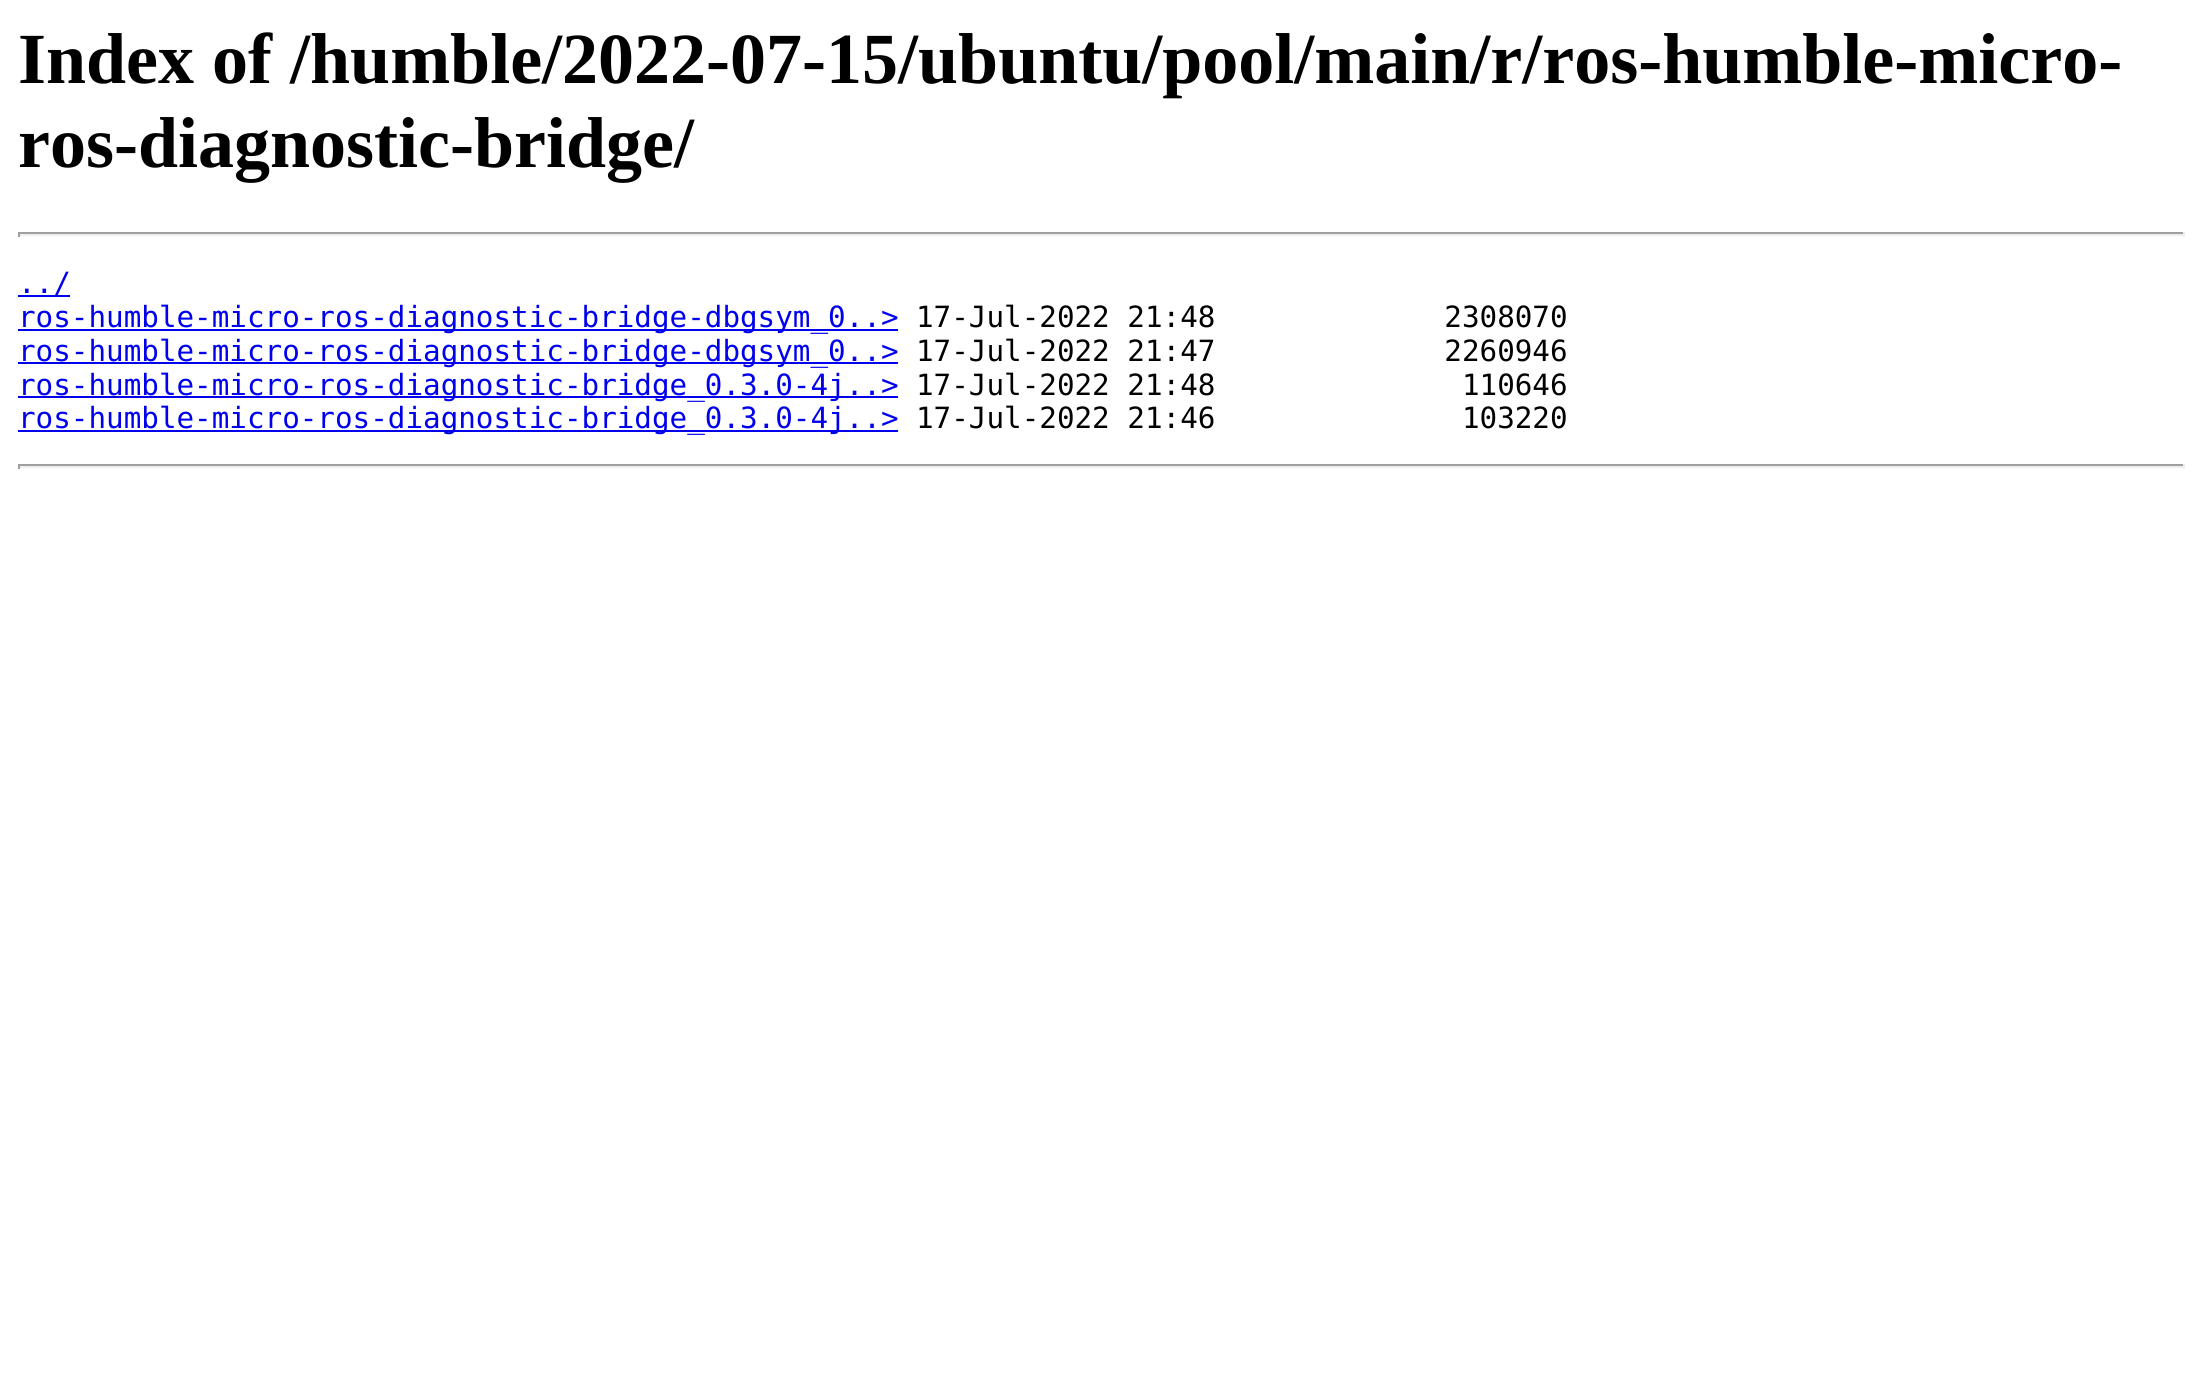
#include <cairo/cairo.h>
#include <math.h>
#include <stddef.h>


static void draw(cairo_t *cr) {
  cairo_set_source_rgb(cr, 1, 1, 1);
  cairo_paint(cr);
  cairo_set_source_rgb(cr, 159 / 255.0, 159 / 255.0, 159 / 255.0);
  cairo_rectangle(cr, 18, 232, 2167, 2);
  cairo_fill(cr);
  cairo_set_source_rgb(cr, 238 / 255.0, 238 / 255.0, 238 / 255.0);
  cairo_rectangle(cr, 2183, 232, 2, 5);
  cairo_fill(cr);
  cairo_rectangle(cr, 18, 234, 2167, 2);
  cairo_fill(cr);
  cairo_set_source_rgb(cr, 159 / 255.0, 159 / 255.0, 159 / 255.0);
  cairo_rectangle(cr, 18, 232, 2, 5);
  cairo_fill(cr);
  cairo_set_source_rgb(cr, 0, 0, 238 / 255.0);
  cairo_rectangle(cr, 18, 295, 52, 2);
  cairo_fill(cr);
  cairo_rectangle(cr, 18, 329, 880, 2);
  cairo_fill(cr);
  cairo_rectangle(cr, 18, 362, 880, 2);
  cairo_fill(cr);
  cairo_rectangle(cr, 18, 396, 880, 2);
  cairo_fill(cr);
  cairo_rectangle(cr, 18, 430, 880, 2);
  cairo_fill(cr);
  cairo_set_source_rgb(cr, 159 / 255.0, 159 / 255.0, 159 / 255.0);
  cairo_rectangle(cr, 18, 464, 2167, 2);
  cairo_fill(cr);
  cairo_set_source_rgb(cr, 238 / 255.0, 238 / 255.0, 238 / 255.0);
  cairo_rectangle(cr, 2183, 464, 2, 5);
  cairo_fill(cr);
  cairo_rectangle(cr, 18, 466, 2167, 2);
  cairo_fill(cr);
  cairo_set_source_rgb(cr, 159 / 255.0, 159 / 255.0, 159 / 255.0);
  cairo_rectangle(cr, 18, 464, 2, 5);
  cairo_fill(cr);
  cairo_select_font_face(cr, "Liberation Serif", CAIRO_FONT_SLANT_NORMAL, CAIRO_FONT_WEIGHT_BOLD);
  cairo_set_font_size(cr, 72);
  cairo_set_source_rgb(cr, 0, 0, 0);
  cairo_move_to(cr, 18, 83);
  cairo_show_text(cr, "Index of /humble/2022-07-15/ubuntu/pool/main/r/ros-humble-micro-");
  cairo_move_to(cr, 18, 167);
  cairo_show_text(cr, "ros-diagnostic-bridge/");
  cairo_select_font_face(cr, "DejaVu Sans Mono", CAIRO_FONT_SLANT_NORMAL, CAIRO_FONT_WEIGHT_NORMAL);
  cairo_set_font_size(cr, 29.25);
  cairo_set_source_rgb(cr, 0, 0, 238 / 255.0);
  cairo_move_to(cr, 18, 293);
  cairo_show_text(cr, "../");
  cairo_move_to(cr, 18, 327);
  cairo_show_text(cr, "ros-humble-micro-ros-diagnostic-bridge-dbgsym_0..>");
  cairo_set_source_rgb(cr, 0, 0, 0);
  cairo_move_to(cr, 916, 327);
  cairo_show_text(cr, "17-Jul-2022 21:48             2308070");
  cairo_set_source_rgb(cr, 0, 0, 238 / 255.0);
  cairo_move_to(cr, 18, 361);
  cairo_show_text(cr, "ros-humble-micro-ros-diagnostic-bridge-dbgsym_0..>");
  cairo_set_source_rgb(cr, 0, 0, 0);
  cairo_move_to(cr, 916, 361);
  cairo_show_text(cr, "17-Jul-2022 21:47             2260946");
  cairo_set_source_rgb(cr, 0, 0, 238 / 255.0);
  cairo_move_to(cr, 18, 395);
  cairo_show_text(cr, "ros-humble-micro-ros-diagnostic-bridge_0.3.0-4j..>");
  cairo_set_source_rgb(cr, 0, 0, 0);
  cairo_move_to(cr, 916, 395);
  cairo_show_text(cr, "17-Jul-2022 21:48              110646");
  cairo_set_source_rgb(cr, 0, 0, 238 / 255.0);
  cairo_move_to(cr, 18, 428);
  cairo_show_text(cr, "ros-humble-micro-ros-diagnostic-bridge_0.3.0-4j..>");
  cairo_set_source_rgb(cr, 0, 0, 0);
  cairo_move_to(cr, 916, 428);
  cairo_show_text(cr, "17-Jul-2022 21:46              103220");
}

int main(void) {
  cairo_surface_t *surface = cairo_image_surface_create(CAIRO_FORMAT_RGB24, 2202, 1385);
  cairo_t *cr = cairo_create(surface);
  cairo_font_options_t *options = cairo_font_options_create();
  cairo_font_options_set_hint_metrics(options, CAIRO_HINT_METRICS_OFF);
  cairo_font_options_set_hint_style(options, CAIRO_HINT_STYLE_NONE);
  cairo_set_font_options(cr, options);
  cairo_set_miter_limit(cr, 4);
  draw(cr);
  cairo_surface_write_to_png(surface, "out.png");
  cairo_font_options_destroy(options);
  cairo_destroy(cr);
  cairo_surface_destroy(surface);
  return 0;
}
